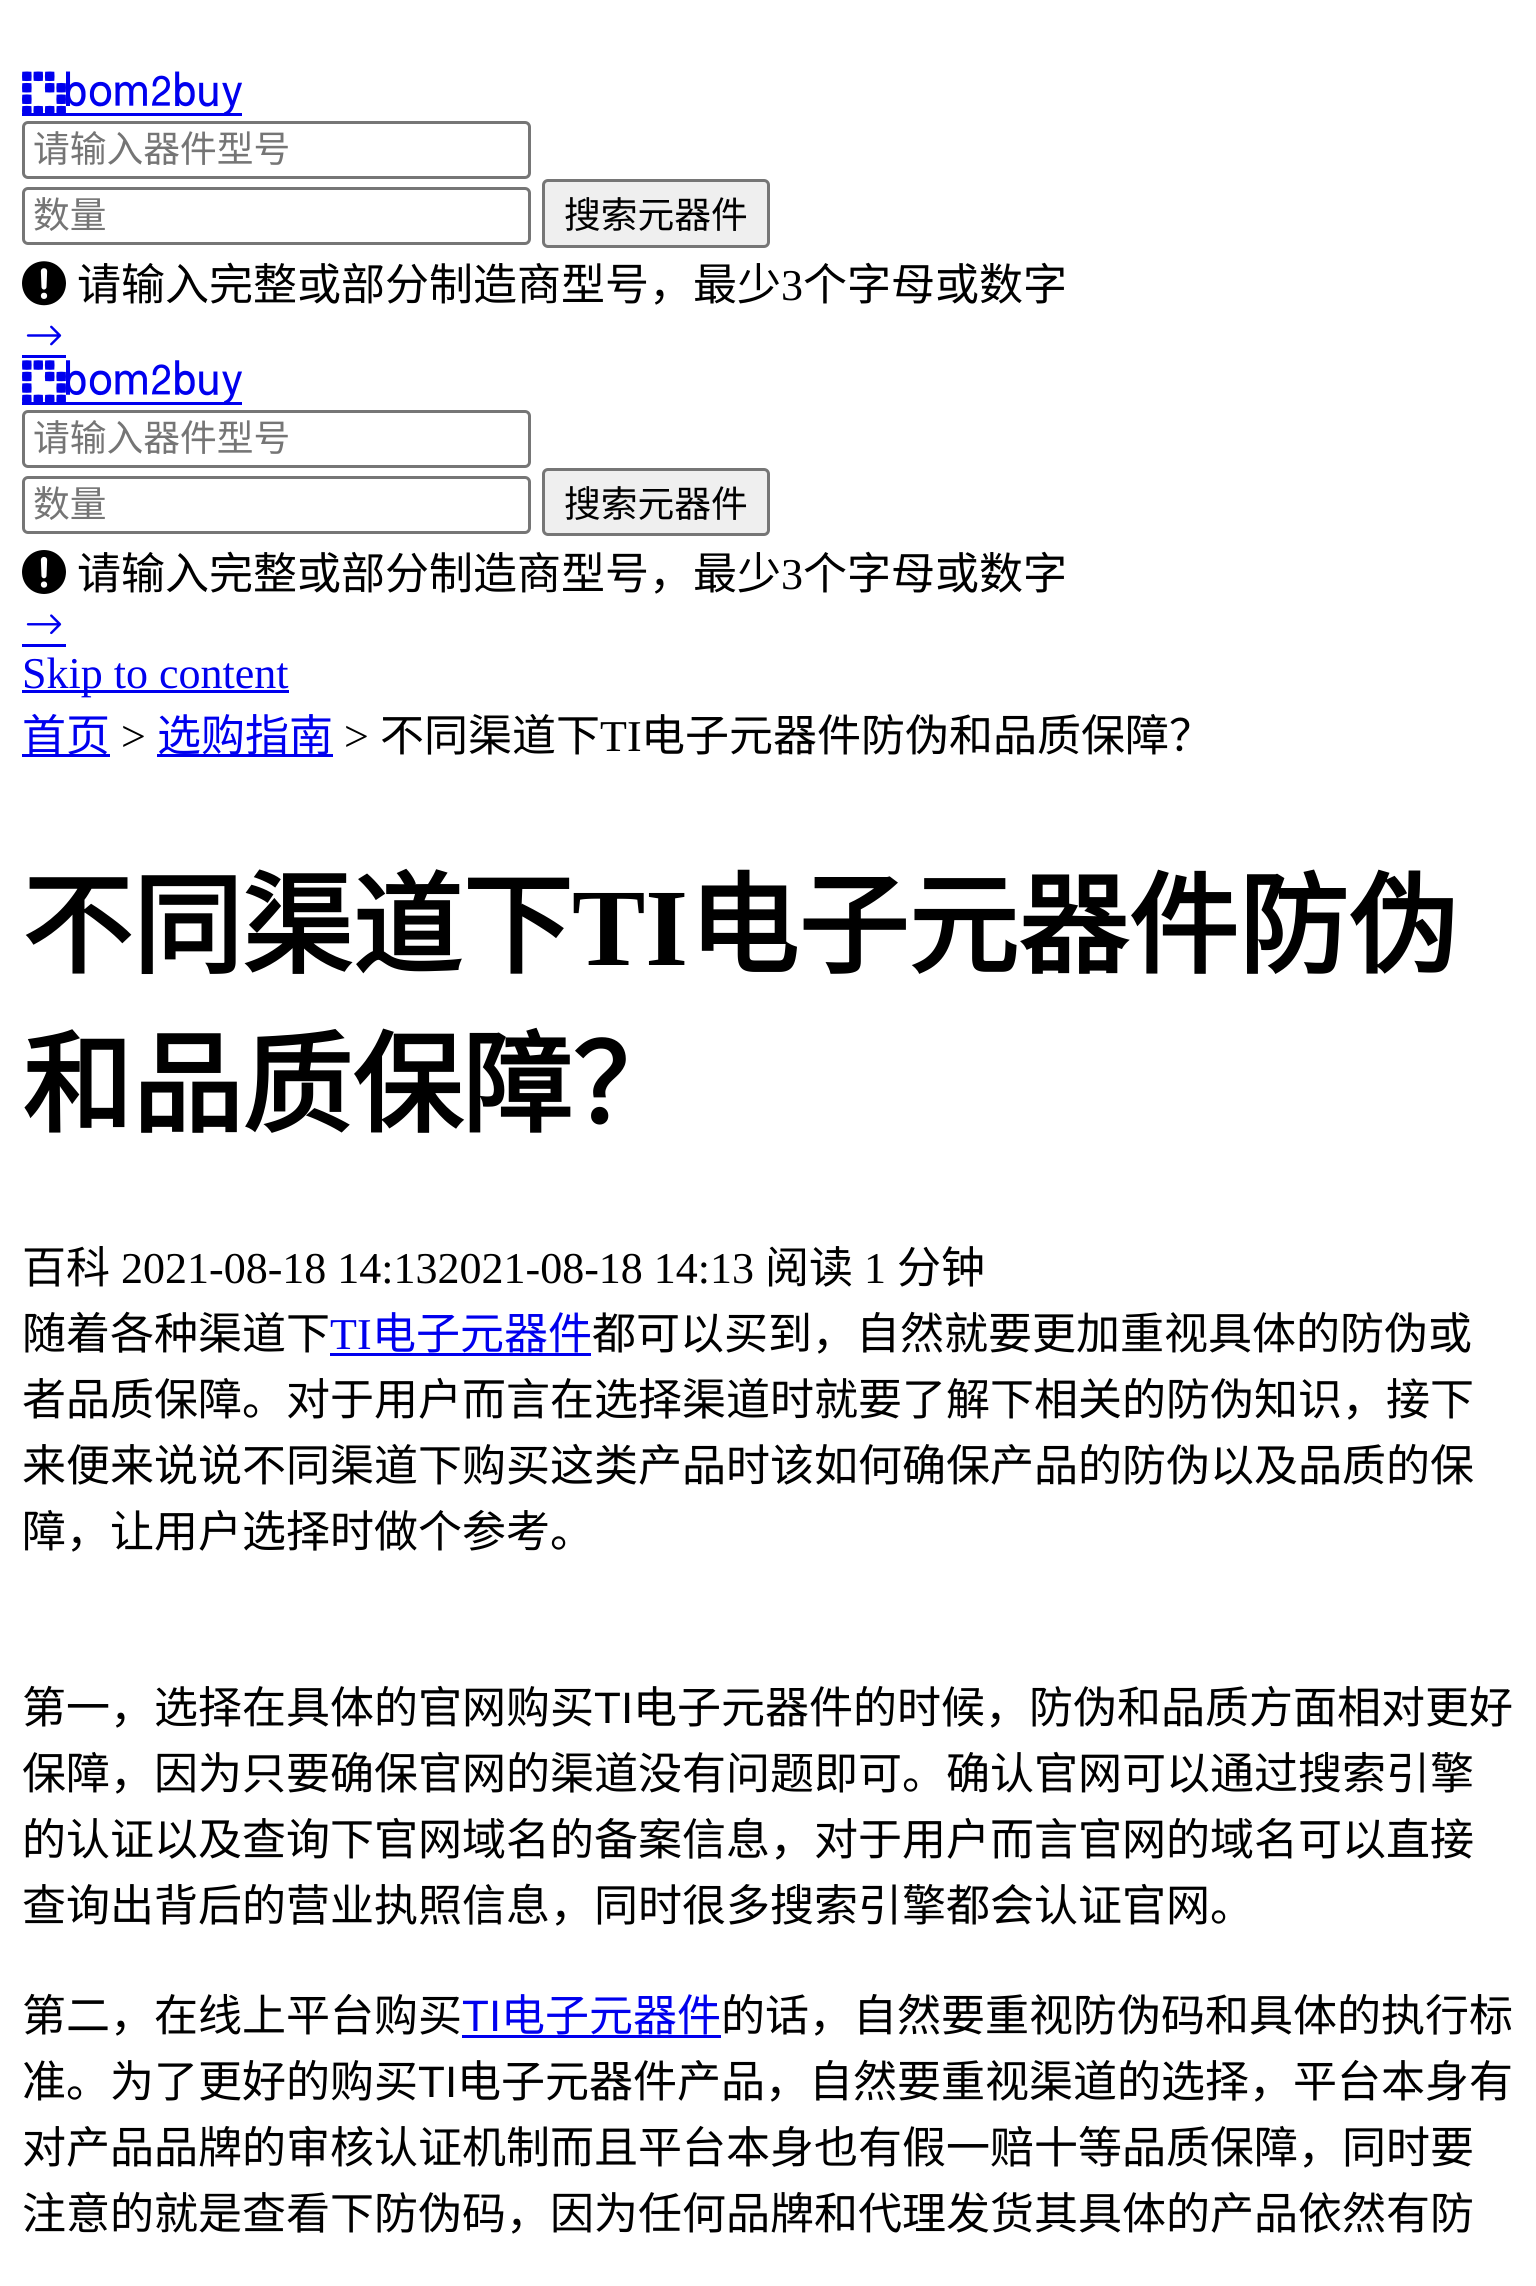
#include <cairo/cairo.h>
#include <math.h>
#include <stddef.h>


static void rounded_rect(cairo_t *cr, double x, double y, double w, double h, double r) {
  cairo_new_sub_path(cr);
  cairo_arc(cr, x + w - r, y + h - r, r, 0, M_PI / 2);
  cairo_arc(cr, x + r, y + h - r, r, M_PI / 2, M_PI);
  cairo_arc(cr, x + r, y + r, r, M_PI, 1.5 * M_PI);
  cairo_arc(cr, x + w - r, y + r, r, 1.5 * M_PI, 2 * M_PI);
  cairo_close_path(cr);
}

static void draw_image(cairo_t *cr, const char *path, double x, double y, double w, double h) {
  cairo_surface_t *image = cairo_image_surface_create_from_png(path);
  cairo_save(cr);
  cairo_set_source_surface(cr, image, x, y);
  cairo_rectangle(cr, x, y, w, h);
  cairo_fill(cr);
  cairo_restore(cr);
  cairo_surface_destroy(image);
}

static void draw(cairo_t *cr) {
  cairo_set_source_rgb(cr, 1, 1, 1);
  cairo_paint(cr);
  draw_image(cr, "images/1.png", 22, 71, 44, 42);
  draw_image(cr, "images/2.png", 66, 71, 176, 42);
  cairo_set_source_rgb(cr, 0, 0, 238 / 255.0);
  cairo_rectangle(cr, 22, 113, 220, 3);
  cairo_fill(cr);
  rounded_rect(cr, 23.5, 122.5, 506, 55, 4.5);
  cairo_set_source_rgb(cr, 118 / 255.0, 118 / 255.0, 118 / 255.0);
  cairo_set_line_width(cr, 3);
  cairo_stroke(cr);
  rounded_rect(cr, 23.5, 188.5, 506, 55, 4.5);
  cairo_stroke(cr);
  cairo_set_source_rgb(cr, 239 / 255.0, 239 / 255.0, 239 / 255.0);
  rounded_rect(cr, 543.5, 180.5, 225, 66, 4.5);
  cairo_fill_preserve(cr);
  cairo_set_source_rgb(cr, 118 / 255.0, 118 / 255.0, 118 / 255.0);
  cairo_stroke(cr);
  draw_image(cr, "images/3.png", 22, 261, 44, 45);
  draw_image(cr, "images/4.png", 26, 325, 36, 21);
  cairo_set_source_rgb(cr, 0, 0, 238 / 255.0);
  cairo_rectangle(cr, 22, 355, 44, 3);
  cairo_fill(cr);
  draw_image(cr, "images/5.png", 22, 360, 44, 42);
  draw_image(cr, "images/6.png", 66, 360, 176, 42);
  cairo_rectangle(cr, 22, 402, 220, 3);
  cairo_fill(cr);
  rounded_rect(cr, 23.5, 411.5, 506, 55, 4.5);
  cairo_set_source_rgb(cr, 118 / 255.0, 118 / 255.0, 118 / 255.0);
  cairo_stroke(cr);
  rounded_rect(cr, 23.5, 477.5, 506, 55, 4.5);
  cairo_stroke(cr);
  cairo_set_source_rgb(cr, 239 / 255.0, 239 / 255.0, 239 / 255.0);
  rounded_rect(cr, 543.5, 469.5, 225, 65, 4.5);
  cairo_fill_preserve(cr);
  cairo_set_source_rgb(cr, 118 / 255.0, 118 / 255.0, 118 / 255.0);
  cairo_stroke(cr);
  draw_image(cr, "images/7.png", 22, 550, 44, 44);
  draw_image(cr, "images/8.png", 26, 614, 36, 21);
  cairo_set_source_rgb(cr, 0, 0, 238 / 255.0);
  cairo_rectangle(cr, 22, 644, 44, 3);
  cairo_fill(cr);
  cairo_rectangle(cr, 22, 690, 267, 3);
  cairo_fill(cr);
  cairo_rectangle(cr, 22, 754, 88, 3);
  cairo_fill(cr);
  cairo_rectangle(cr, 157, 754, 176, 3);
  cairo_fill(cr);
  cairo_rectangle(cr, 330, 1353, 261, 3);
  cairo_fill(cr);
  cairo_rectangle(cr, 462, 2035, 259, 3);
  cairo_fill(cr);
  cairo_select_font_face(cr, "Noto Sans CJK SC", CAIRO_FONT_SLANT_NORMAL, CAIRO_FONT_WEIGHT_NORMAL);
  cairo_set_font_size(cr, 36.75);
  cairo_set_source_rgb(cr, 117 / 255.0, 117 / 255.0, 117 / 255.0);
  cairo_move_to(cr, 33, 162);
  cairo_show_text(cr, "请输入器件型号");
  cairo_move_to(cr, 33, 228);
  cairo_show_text(cr, "数量");
  cairo_set_source_rgb(cr, 0, 0, 0);
  cairo_move_to(cr, 564, 228);
  cairo_show_text(cr, "搜索元器件");
  cairo_set_font_size(cr, 44);
  cairo_move_to(cr, 77, 300);
  cairo_show_text(cr, "请输入完整或部分制造商型号，最少");
  cairo_select_font_face(cr, "Liberation Serif", CAIRO_FONT_SLANT_NORMAL, CAIRO_FONT_WEIGHT_NORMAL);
  cairo_move_to(cr, 781, 300);
  cairo_show_text(cr, "3");
  cairo_select_font_face(cr, "Noto Sans CJK SC", CAIRO_FONT_SLANT_NORMAL, CAIRO_FONT_WEIGHT_NORMAL);
  cairo_move_to(cr, 803, 300);
  cairo_show_text(cr, "个字母或数字");
  cairo_set_font_size(cr, 36.75);
  cairo_set_source_rgb(cr, 117 / 255.0, 117 / 255.0, 117 / 255.0);
  cairo_move_to(cr, 33, 451);
  cairo_show_text(cr, "请输入器件型号");
  cairo_move_to(cr, 33, 517);
  cairo_show_text(cr, "数量");
  cairo_set_source_rgb(cr, 0, 0, 0);
  cairo_move_to(cr, 564, 517);
  cairo_show_text(cr, "搜索元器件");
  cairo_set_font_size(cr, 44);
  cairo_move_to(cr, 77, 589);
  cairo_show_text(cr, "请输入完整或部分制造商型号，最少");
  cairo_select_font_face(cr, "Liberation Serif", CAIRO_FONT_SLANT_NORMAL, CAIRO_FONT_WEIGHT_NORMAL);
  cairo_move_to(cr, 781, 589);
  cairo_show_text(cr, "3");
  cairo_select_font_face(cr, "Noto Sans CJK SC", CAIRO_FONT_SLANT_NORMAL, CAIRO_FONT_WEIGHT_NORMAL);
  cairo_move_to(cr, 803, 589);
  cairo_show_text(cr, "个字母或数字");
  cairo_select_font_face(cr, "Liberation Serif", CAIRO_FONT_SLANT_NORMAL, CAIRO_FONT_WEIGHT_NORMAL);
  cairo_set_source_rgb(cr, 0, 0, 238 / 255.0);
  cairo_move_to(cr, 22, 688);
  cairo_show_text(cr, "Skip to content");
  cairo_select_font_face(cr, "Noto Sans CJK SC", CAIRO_FONT_SLANT_NORMAL, CAIRO_FONT_WEIGHT_NORMAL);
  cairo_move_to(cr, 22, 751);
  cairo_show_text(cr, "首页");
  cairo_select_font_face(cr, "Liberation Serif", CAIRO_FONT_SLANT_NORMAL, CAIRO_FONT_WEIGHT_NORMAL);
  cairo_set_source_rgb(cr, 0, 0, 0);
  cairo_move_to(cr, 121, 751);
  cairo_show_text(cr, ">");
  cairo_select_font_face(cr, "Noto Sans CJK SC", CAIRO_FONT_SLANT_NORMAL, CAIRO_FONT_WEIGHT_NORMAL);
  cairo_set_source_rgb(cr, 0, 0, 238 / 255.0);
  cairo_move_to(cr, 157, 751);
  cairo_show_text(cr, "选购指南");
  cairo_select_font_face(cr, "Liberation Serif", CAIRO_FONT_SLANT_NORMAL, CAIRO_FONT_WEIGHT_NORMAL);
  cairo_set_source_rgb(cr, 0, 0, 0);
  cairo_move_to(cr, 344, 751);
  cairo_show_text(cr, ">");
  cairo_select_font_face(cr, "Noto Sans CJK SC", CAIRO_FONT_SLANT_NORMAL, CAIRO_FONT_WEIGHT_NORMAL);
  cairo_move_to(cr, 380, 751);
  cairo_show_text(cr, "不同渠道下");
  cairo_select_font_face(cr, "Liberation Serif", CAIRO_FONT_SLANT_NORMAL, CAIRO_FONT_WEIGHT_NORMAL);
  cairo_move_to(cr, 600, 751);
  cairo_show_text(cr, "TI");
  cairo_select_font_face(cr, "Noto Sans CJK SC", CAIRO_FONT_SLANT_NORMAL, CAIRO_FONT_WEIGHT_NORMAL);
  cairo_move_to(cr, 641, 751);
  cairo_show_text(cr, "电子元器件防伪和品质保障？");
  cairo_select_font_face(cr, "Noto Sans CJK SC", CAIRO_FONT_SLANT_NORMAL, CAIRO_FONT_WEIGHT_BOLD);
  cairo_set_font_size(cr, 110);
  cairo_move_to(cr, 22, 965);
  cairo_show_text(cr, "不同渠道下");
  cairo_select_font_face(cr, "Liberation Serif", CAIRO_FONT_SLANT_NORMAL, CAIRO_FONT_WEIGHT_BOLD);
  cairo_move_to(cr, 572, 965);
  cairo_show_text(cr, "TI");
  cairo_select_font_face(cr, "Noto Sans CJK SC", CAIRO_FONT_SLANT_NORMAL, CAIRO_FONT_WEIGHT_BOLD);
  cairo_move_to(cr, 688, 965);
  cairo_show_text(cr, "电子元器件防伪");
  cairo_move_to(cr, 22, 1124);
  cairo_show_text(cr, "和品质保障？");
  cairo_select_font_face(cr, "Noto Sans CJK SC", CAIRO_FONT_SLANT_NORMAL, CAIRO_FONT_WEIGHT_NORMAL);
  cairo_set_font_size(cr, 44);
  cairo_move_to(cr, 22, 1283);
  cairo_show_text(cr, "百科");
  cairo_select_font_face(cr, "Liberation Serif", CAIRO_FONT_SLANT_NORMAL, CAIRO_FONT_WEIGHT_NORMAL);
  cairo_move_to(cr, 121, 1283);
  cairo_show_text(cr, "2021-08-18 14:132021-08-18 14:13");
  cairo_select_font_face(cr, "Noto Sans CJK SC", CAIRO_FONT_SLANT_NORMAL, CAIRO_FONT_WEIGHT_NORMAL);
  cairo_move_to(cr, 765, 1283);
  cairo_show_text(cr, "阅读");
  cairo_select_font_face(cr, "Liberation Serif", CAIRO_FONT_SLANT_NORMAL, CAIRO_FONT_WEIGHT_NORMAL);
  cairo_move_to(cr, 864, 1283);
  cairo_show_text(cr, "1");
  cairo_select_font_face(cr, "Noto Sans CJK SC", CAIRO_FONT_SLANT_NORMAL, CAIRO_FONT_WEIGHT_NORMAL);
  cairo_move_to(cr, 897, 1283);
  cairo_show_text(cr, "分钟");
  cairo_move_to(cr, 22, 1349);
  cairo_show_text(cr, "随着各种渠道下");
  cairo_select_font_face(cr, "Liberation Serif", CAIRO_FONT_SLANT_NORMAL, CAIRO_FONT_WEIGHT_NORMAL);
  cairo_set_source_rgb(cr, 0, 0, 238 / 255.0);
  cairo_move_to(cr, 330, 1349);
  cairo_show_text(cr, "TI");
  cairo_select_font_face(cr, "Noto Sans CJK SC", CAIRO_FONT_SLANT_NORMAL, CAIRO_FONT_WEIGHT_NORMAL);
  cairo_move_to(cr, 372, 1349);
  cairo_show_text(cr, "电子元器件");
  cairo_set_source_rgb(cr, 0, 0, 0);
  cairo_move_to(cr, 592, 1349);
  cairo_show_text(cr, "都可以买到，自然就要更加重视具体的防伪或");
  cairo_move_to(cr, 22, 1415);
  cairo_show_text(cr, "者品质保障。对于用户而言在选择渠道时就要了解下相关的防伪知识，接下");
  cairo_move_to(cr, 22, 1481);
  cairo_show_text(cr, "来便来说说不同渠道下购买这类产品时该如何确保产品的防伪以及品质的保");
  cairo_move_to(cr, 22, 1547);
  cairo_show_text(cr, "障，让用户选择时做个参考。");
  cairo_move_to(cr, 22, 1723);
  cairo_show_text(cr, "第一，选择在具体的官网购买");
  cairo_select_font_face(cr, "Liberation Sans", CAIRO_FONT_SLANT_NORMAL, CAIRO_FONT_WEIGHT_NORMAL);
  cairo_move_to(cr, 594, 1723);
  cairo_show_text(cr, "TI");
  cairo_select_font_face(cr, "Noto Sans CJK SC", CAIRO_FONT_SLANT_NORMAL, CAIRO_FONT_WEIGHT_NORMAL);
  cairo_move_to(cr, 633, 1723);
  cairo_show_text(cr, "电子元器件的时候，防伪和品质方面相对更好");
  cairo_move_to(cr, 22, 1789);
  cairo_show_text(cr, "保障，因为只要确保官网的渠道没有问题即可。确认官网可以通过搜索引擎");
  cairo_move_to(cr, 22, 1855);
  cairo_show_text(cr, "的认证以及查询下官网域名的备案信息，对于用户而言官网的域名可以直接");
  cairo_move_to(cr, 22, 1921);
  cairo_show_text(cr, "查询出背后的营业执照信息，同时很多搜索引擎都会认证官网。");
  cairo_move_to(cr, 22, 2031);
  cairo_show_text(cr, "第二，在线上平台购买");
  cairo_select_font_face(cr, "Liberation Sans", CAIRO_FONT_SLANT_NORMAL, CAIRO_FONT_WEIGHT_NORMAL);
  cairo_set_source_rgb(cr, 0, 0, 238 / 255.0);
  cairo_move_to(cr, 462, 2031);
  cairo_show_text(cr, "TI");
  cairo_select_font_face(cr, "Noto Sans CJK SC", CAIRO_FONT_SLANT_NORMAL, CAIRO_FONT_WEIGHT_NORMAL);
  cairo_move_to(cr, 501, 2031);
  cairo_show_text(cr, "电子元器件");
  cairo_set_source_rgb(cr, 0, 0, 0);
  cairo_move_to(cr, 721, 2031);
  cairo_show_text(cr, "的话，自然要重视防伪码和具体的执行标");
  cairo_move_to(cr, 22, 2097);
  cairo_show_text(cr, "准。为了更好的购买");
  cairo_select_font_face(cr, "Liberation Sans", CAIRO_FONT_SLANT_NORMAL, CAIRO_FONT_WEIGHT_NORMAL);
  cairo_move_to(cr, 418, 2097);
  cairo_show_text(cr, "TI");
  cairo_select_font_face(cr, "Noto Sans CJK SC", CAIRO_FONT_SLANT_NORMAL, CAIRO_FONT_WEIGHT_NORMAL);
  cairo_move_to(cr, 457, 2097);
  cairo_show_text(cr, "电子元器件产品，自然要重视渠道的选择，平台本身有");
  cairo_move_to(cr, 22, 2163);
  cairo_show_text(cr, "对产品品牌的审核认证机制而且平台本身也有假一赔十等品质保障，同时要");
  cairo_move_to(cr, 22, 2229);
  cairo_show_text(cr, "注意的就是查看下防伪码，因为任何品牌和代理发货其具体的产品依然有防");
}

int main(void) {
  cairo_surface_t *surface = cairo_image_surface_create(CAIRO_FORMAT_RGB24, 1536, 2286);
  cairo_t *cr = cairo_create(surface);
  cairo_font_options_t *options = cairo_font_options_create();
  cairo_font_options_set_hint_metrics(options, CAIRO_HINT_METRICS_OFF);
  cairo_font_options_set_hint_style(options, CAIRO_HINT_STYLE_NONE);
  cairo_set_font_options(cr, options);
  cairo_set_miter_limit(cr, 4);
  draw(cr);
  cairo_surface_write_to_png(surface, "out.png");
  cairo_font_options_destroy(options);
  cairo_destroy(cr);
  cairo_surface_destroy(surface);
  return 0;
}
